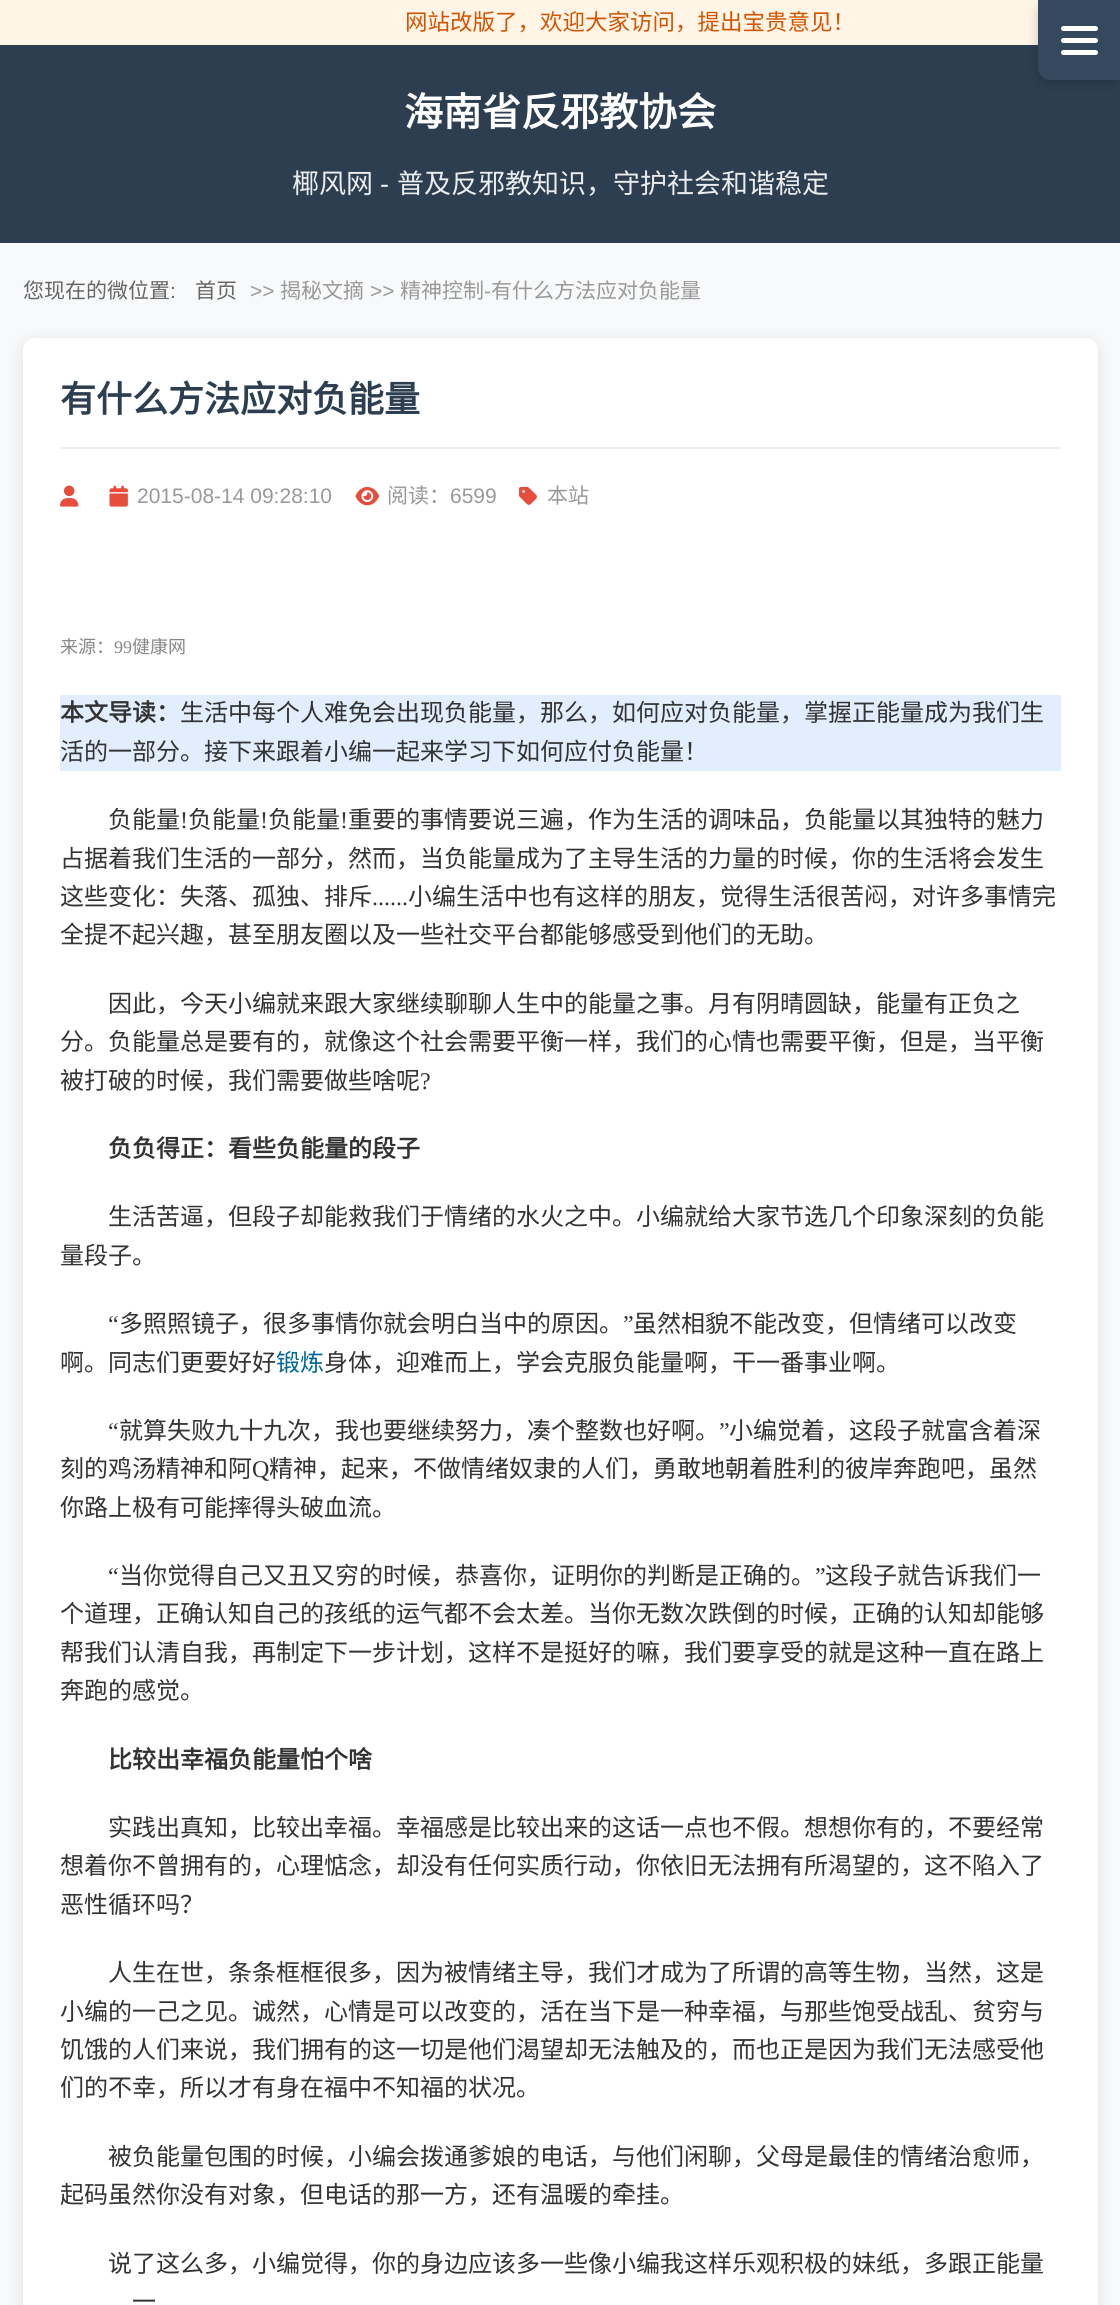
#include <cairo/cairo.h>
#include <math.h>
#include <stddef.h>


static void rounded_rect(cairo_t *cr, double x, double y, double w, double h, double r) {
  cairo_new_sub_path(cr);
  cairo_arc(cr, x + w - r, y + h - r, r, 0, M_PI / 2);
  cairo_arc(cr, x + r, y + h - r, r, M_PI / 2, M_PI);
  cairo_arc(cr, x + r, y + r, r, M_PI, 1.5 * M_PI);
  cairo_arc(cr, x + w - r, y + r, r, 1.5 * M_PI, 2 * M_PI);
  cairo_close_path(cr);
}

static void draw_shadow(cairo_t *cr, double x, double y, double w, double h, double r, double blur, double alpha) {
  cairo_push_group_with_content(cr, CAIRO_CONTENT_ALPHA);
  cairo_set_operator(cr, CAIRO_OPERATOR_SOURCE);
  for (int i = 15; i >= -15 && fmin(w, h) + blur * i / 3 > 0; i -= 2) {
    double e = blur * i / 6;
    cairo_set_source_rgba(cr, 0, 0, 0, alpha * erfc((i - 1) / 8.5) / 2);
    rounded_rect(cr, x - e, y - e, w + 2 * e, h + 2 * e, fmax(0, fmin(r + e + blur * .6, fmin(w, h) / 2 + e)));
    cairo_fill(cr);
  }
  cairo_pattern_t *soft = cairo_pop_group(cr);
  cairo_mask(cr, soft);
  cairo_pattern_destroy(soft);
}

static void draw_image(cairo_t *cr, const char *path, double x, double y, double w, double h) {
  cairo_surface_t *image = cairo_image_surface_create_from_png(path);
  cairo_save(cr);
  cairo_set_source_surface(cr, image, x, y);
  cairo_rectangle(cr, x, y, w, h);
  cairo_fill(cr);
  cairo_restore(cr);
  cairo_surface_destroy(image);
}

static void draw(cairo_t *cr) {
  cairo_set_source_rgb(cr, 248 / 255.0, 249 / 255.0, 250 / 255.0);
  cairo_paint(cr);
  cairo_set_source_rgb(cr, 254 / 255.0, 245 / 255.0, 231 / 255.0);
  cairo_rectangle(cr, 0, 0, 1038, 45);
  cairo_fill(cr);
  cairo_set_source_rgb(cr, 44 / 255.0, 62 / 255.0, 80 / 255.0);
  cairo_rectangle(cr, 0, 45, 1120, 198);
  cairo_fill(cr);
  cairo_set_source_rgb(cr, 0, 0, 0);
  draw_shadow(cr, 1038, 3, 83, 80, 12, 6, 0.2);
  cairo_set_source_rgb(cr, 52 / 255.0, 73 / 255.0, 94 / 255.0);
  cairo_new_path(cr);
  cairo_move_to(cr, 1038, 0);
  cairo_line_to(cr, 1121, 0);
  cairo_line_to(cr, 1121, 80);
  cairo_line_to(cr, 1050, 80);
  cairo_curve_to(cr, 1043.5, 80, 1038, 74.5, 1038, 68);
  cairo_close_path(cr);
  cairo_fill(cr);
  cairo_set_source_rgb(cr, 1, 1, 1);
  rounded_rect(cr, 1061, 26, 37, 5, 2.5);
  cairo_fill(cr);
  rounded_rect(cr, 1061, 38, 37, 5, 2.5);
  cairo_fill(cr);
  rounded_rect(cr, 1061, 50, 37, 5, 2.5);
  cairo_fill(cr);
  cairo_set_source_rgb(cr, 0, 0, 0);
  draw_shadow(cr, 23, 341, 1075, 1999, 12, 7.5, 0.1);
  cairo_set_source_rgb(cr, 1, 1, 1);
  rounded_rect(cr, 23, 338, 1075, 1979, 12);
  cairo_fill(cr);
  cairo_set_source_rgb(cr, 238 / 255.0, 238 / 255.0, 238 / 255.0);
  cairo_rectangle(cr, 60, 447, 1001, 2);
  cairo_fill(cr);
  draw_image(cr, "images/1.png", 60, 485, 19, 22);
  draw_image(cr, "images/2.png", 109, 485, 19, 22);
  draw_image(cr, "images/3.png", 355, 486, 25, 20);
  draw_image(cr, "images/4.png", 519, 486, 18, 19);
  cairo_set_source_rgb(cr, 226 / 255.0, 238 / 255.0, 253 / 255.0);
  cairo_rectangle(cr, 60, 695, 1001, 76);
  cairo_fill(cr);
  cairo_select_font_face(cr, "Noto Sans CJK SC", CAIRO_FONT_SLANT_NORMAL, CAIRO_FONT_WEIGHT_NORMAL);
  cairo_set_font_size(cr, 22.5);
  cairo_set_source_rgb(cr, 211 / 255.0, 84 / 255.0, 0);
  cairo_move_to(cr, 405, 30);
  cairo_show_text(cr, "网站改版了，欢迎大家访问，提出宝贵意见！");
  cairo_select_font_face(cr, "Noto Sans CJK SC", CAIRO_FONT_SLANT_NORMAL, CAIRO_FONT_WEIGHT_BOLD);
  cairo_set_font_size(cr, 39);
  cairo_set_source_rgb(cr, 1, 1, 1);
  cairo_move_to(cr, 404, 126);
  cairo_show_text(cr, "海南省反邪教协会");
  cairo_select_font_face(cr, "Noto Sans CJK SC", CAIRO_FONT_SLANT_NORMAL, CAIRO_FONT_WEIGHT_NORMAL);
  cairo_set_font_size(cr, 27);
  cairo_set_source_rgb(cr, 234 / 255.0, 236 / 255.0, 238 / 255.0);
  cairo_move_to(cr, 292, 193);
  cairo_show_text(cr, "椰风网");
  cairo_select_font_face(cr, "Liberation Sans", CAIRO_FONT_SLANT_NORMAL, CAIRO_FONT_WEIGHT_NORMAL);
  cairo_move_to(cr, 380, 193);
  cairo_show_text(cr, "-");
  cairo_select_font_face(cr, "Noto Sans CJK SC", CAIRO_FONT_SLANT_NORMAL, CAIRO_FONT_WEIGHT_NORMAL);
  cairo_move_to(cr, 397, 193);
  cairo_show_text(cr, "普及反邪教知识，守护社会和谐稳定");
  cairo_set_font_size(cr, 21);
  cairo_set_source_rgb(cr, 102 / 255.0, 102 / 255.0, 102 / 255.0);
  cairo_move_to(cr, 23, 298);
  cairo_show_text(cr, "您现在的微位置");
  cairo_select_font_face(cr, "Liberation Sans", CAIRO_FONT_SLANT_NORMAL, CAIRO_FONT_WEIGHT_NORMAL);
  cairo_move_to(cr, 170, 298);
  cairo_show_text(cr, ":");
  cairo_select_font_face(cr, "Noto Sans CJK SC", CAIRO_FONT_SLANT_NORMAL, CAIRO_FONT_WEIGHT_NORMAL);
  cairo_move_to(cr, 195, 298);
  cairo_show_text(cr, "首页");
  cairo_select_font_face(cr, "Liberation Sans", CAIRO_FONT_SLANT_NORMAL, CAIRO_FONT_WEIGHT_NORMAL);
  cairo_set_source_rgb(cr, 153 / 255.0, 153 / 255.0, 153 / 255.0);
  cairo_move_to(cr, 250, 298);
  cairo_show_text(cr, ">>");
  cairo_select_font_face(cr, "Noto Sans CJK SC", CAIRO_FONT_SLANT_NORMAL, CAIRO_FONT_WEIGHT_NORMAL);
  cairo_move_to(cr, 280, 298);
  cairo_show_text(cr, "揭秘文摘");
  cairo_select_font_face(cr, "Liberation Sans", CAIRO_FONT_SLANT_NORMAL, CAIRO_FONT_WEIGHT_NORMAL);
  cairo_move_to(cr, 370, 298);
  cairo_show_text(cr, ">>");
  cairo_select_font_face(cr, "Noto Sans CJK SC", CAIRO_FONT_SLANT_NORMAL, CAIRO_FONT_WEIGHT_NORMAL);
  cairo_move_to(cr, 400, 298);
  cairo_show_text(cr, "精神控制");
  cairo_select_font_face(cr, "Liberation Sans", CAIRO_FONT_SLANT_NORMAL, CAIRO_FONT_WEIGHT_NORMAL);
  cairo_move_to(cr, 484, 298);
  cairo_show_text(cr, "-");
  cairo_select_font_face(cr, "Noto Sans CJK SC", CAIRO_FONT_SLANT_NORMAL, CAIRO_FONT_WEIGHT_NORMAL);
  cairo_move_to(cr, 491, 298);
  cairo_show_text(cr, "有什么方法应对负能量");
  cairo_select_font_face(cr, "Noto Sans CJK SC", CAIRO_FONT_SLANT_NORMAL, CAIRO_FONT_WEIGHT_BOLD);
  cairo_set_font_size(cr, 36);
  cairo_set_source_rgb(cr, 44 / 255.0, 62 / 255.0, 80 / 255.0);
  cairo_move_to(cr, 60, 412);
  cairo_show_text(cr, "有什么方法应对负能量");
  cairo_select_font_face(cr, "Liberation Sans", CAIRO_FONT_SLANT_NORMAL, CAIRO_FONT_WEIGHT_NORMAL);
  cairo_set_font_size(cr, 21);
  cairo_set_source_rgb(cr, 153 / 255.0, 153 / 255.0, 153 / 255.0);
  cairo_move_to(cr, 137, 503);
  cairo_show_text(cr, "2015-08-14 09:28:10");
  cairo_select_font_face(cr, "Noto Sans CJK SC", CAIRO_FONT_SLANT_NORMAL, CAIRO_FONT_WEIGHT_NORMAL);
  cairo_move_to(cr, 387, 503);
  cairo_show_text(cr, "阅读：");
  cairo_select_font_face(cr, "Liberation Sans", CAIRO_FONT_SLANT_NORMAL, CAIRO_FONT_WEIGHT_NORMAL);
  cairo_move_to(cr, 450, 503);
  cairo_show_text(cr, "6599");
  cairo_select_font_face(cr, "Noto Sans CJK SC", CAIRO_FONT_SLANT_NORMAL, CAIRO_FONT_WEIGHT_NORMAL);
  cairo_move_to(cr, 547, 503);
  cairo_show_text(cr, "本站");
  cairo_set_font_size(cr, 18);
  cairo_set_source_rgb(cr, 136 / 255.0, 136 / 255.0, 136 / 255.0);
  cairo_move_to(cr, 60, 653);
  cairo_show_text(cr, "来源：");
  cairo_select_font_face(cr, "Liberation Serif", CAIRO_FONT_SLANT_NORMAL, CAIRO_FONT_WEIGHT_NORMAL);
  cairo_move_to(cr, 114, 653);
  cairo_show_text(cr, "99");
  cairo_select_font_face(cr, "Noto Sans CJK SC", CAIRO_FONT_SLANT_NORMAL, CAIRO_FONT_WEIGHT_NORMAL);
  cairo_move_to(cr, 132, 653);
  cairo_show_text(cr, "健康网");
  cairo_select_font_face(cr, "Noto Sans CJK SC", CAIRO_FONT_SLANT_NORMAL, CAIRO_FONT_WEIGHT_BOLD);
  cairo_set_font_size(cr, 24);
  cairo_set_source_rgb(cr, 51 / 255.0, 51 / 255.0, 51 / 255.0);
  cairo_move_to(cr, 60, 721);
  cairo_show_text(cr, "本文导读：");
  cairo_select_font_face(cr, "Noto Sans CJK SC", CAIRO_FONT_SLANT_NORMAL, CAIRO_FONT_WEIGHT_NORMAL);
  cairo_move_to(cr, 180, 721);
  cairo_show_text(cr, "生活中每个人难免会出现负能量，那么，如何应对负能量，掌握正能量成为我们生");
  cairo_move_to(cr, 60, 760);
  cairo_show_text(cr, "活的一部分。接下来跟着小编一起来学习下如何应付负能量！");
  cairo_move_to(cr, 108, 828);
  cairo_show_text(cr, "负能量");
  cairo_select_font_face(cr, "Liberation Serif", CAIRO_FONT_SLANT_NORMAL, CAIRO_FONT_WEIGHT_NORMAL);
  cairo_move_to(cr, 180, 828);
  cairo_show_text(cr, "!");
  cairo_select_font_face(cr, "Noto Sans CJK SC", CAIRO_FONT_SLANT_NORMAL, CAIRO_FONT_WEIGHT_NORMAL);
  cairo_move_to(cr, 188, 828);
  cairo_show_text(cr, "负能量");
  cairo_select_font_face(cr, "Liberation Serif", CAIRO_FONT_SLANT_NORMAL, CAIRO_FONT_WEIGHT_NORMAL);
  cairo_move_to(cr, 260, 828);
  cairo_show_text(cr, "!");
  cairo_select_font_face(cr, "Noto Sans CJK SC", CAIRO_FONT_SLANT_NORMAL, CAIRO_FONT_WEIGHT_NORMAL);
  cairo_move_to(cr, 268, 828);
  cairo_show_text(cr, "负能量");
  cairo_select_font_face(cr, "Liberation Serif", CAIRO_FONT_SLANT_NORMAL, CAIRO_FONT_WEIGHT_NORMAL);
  cairo_move_to(cr, 340, 828);
  cairo_show_text(cr, "!");
  cairo_select_font_face(cr, "Noto Sans CJK SC", CAIRO_FONT_SLANT_NORMAL, CAIRO_FONT_WEIGHT_NORMAL);
  cairo_move_to(cr, 348, 828);
  cairo_show_text(cr, "重要的事情要说三遍，作为生活的调味品，负能量以其独特的魅力");
  cairo_move_to(cr, 60, 867);
  cairo_show_text(cr, "占据着我们生活的一部分，然而，当负能量成为了主导生活的力量的时候，你的生活将会发生");
  cairo_move_to(cr, 60, 905);
  cairo_show_text(cr, "这些变化：失落、孤独、排斥");
  cairo_select_font_face(cr, "Liberation Serif", CAIRO_FONT_SLANT_NORMAL, CAIRO_FONT_WEIGHT_NORMAL);
  cairo_move_to(cr, 372, 905);
  cairo_show_text(cr, "......");
  cairo_select_font_face(cr, "Noto Sans CJK SC", CAIRO_FONT_SLANT_NORMAL, CAIRO_FONT_WEIGHT_NORMAL);
  cairo_move_to(cr, 408, 905);
  cairo_show_text(cr, "小编生活中也有这样的朋友，觉得生活很苦闷，对许多事情完");
  cairo_move_to(cr, 60, 943);
  cairo_show_text(cr, "全提不起兴趣，甚至朋友圈以及一些社交平台都能够感受到他们的无助。");
  cairo_move_to(cr, 108, 1012);
  cairo_show_text(cr, "因此，今天小编就来跟大家继续聊聊人生中的能量之事。月有阴晴圆缺，能量有正负之");
  cairo_move_to(cr, 60, 1050);
  cairo_show_text(cr, "分。负能量总是要有的，就像这个社会需要平衡一样，我们的心情也需要平衡，但是，当平衡");
  cairo_move_to(cr, 60, 1089);
  cairo_show_text(cr, "被打破的时候，我们需要做些啥呢");
  cairo_select_font_face(cr, "Liberation Serif", CAIRO_FONT_SLANT_NORMAL, CAIRO_FONT_WEIGHT_NORMAL);
  cairo_move_to(cr, 420, 1089);
  cairo_show_text(cr, "?");
  cairo_select_font_face(cr, "Noto Sans CJK SC", CAIRO_FONT_SLANT_NORMAL, CAIRO_FONT_WEIGHT_BOLD);
  cairo_move_to(cr, 108, 1157);
  cairo_show_text(cr, "负负得正：看些负能量的段子");
  cairo_select_font_face(cr, "Noto Sans CJK SC", CAIRO_FONT_SLANT_NORMAL, CAIRO_FONT_WEIGHT_NORMAL);
  cairo_move_to(cr, 108, 1225);
  cairo_show_text(cr, "生活苦逼，但段子却能救我们于情绪的水火之中。小编就给大家节选几个印象深刻的负能");
  cairo_move_to(cr, 60, 1264);
  cairo_show_text(cr, "量段子。");
  cairo_select_font_face(cr, "Liberation Serif", CAIRO_FONT_SLANT_NORMAL, CAIRO_FONT_WEIGHT_NORMAL);
  cairo_move_to(cr, 108, 1332);
  cairo_show_text(cr, "“");
  cairo_select_font_face(cr, "Noto Sans CJK SC", CAIRO_FONT_SLANT_NORMAL, CAIRO_FONT_WEIGHT_NORMAL);
  cairo_move_to(cr, 119, 1332);
  cairo_show_text(cr, "多照照镜子，很多事情你就会明白当中的原因。");
  cairo_select_font_face(cr, "Liberation Serif", CAIRO_FONT_SLANT_NORMAL, CAIRO_FONT_WEIGHT_NORMAL);
  cairo_move_to(cr, 623, 1332);
  cairo_show_text(cr, "”");
  cairo_select_font_face(cr, "Noto Sans CJK SC", CAIRO_FONT_SLANT_NORMAL, CAIRO_FONT_WEIGHT_NORMAL);
  cairo_move_to(cr, 633, 1332);
  cairo_show_text(cr, "虽然相貌不能改变，但情绪可以改变");
  cairo_move_to(cr, 60, 1371);
  cairo_show_text(cr, "啊。同志们更要好好");
  cairo_set_source_rgb(cr, 0, 102 / 255.0, 153 / 255.0);
  cairo_move_to(cr, 276, 1371);
  cairo_show_text(cr, "锻炼");
  cairo_set_source_rgb(cr, 51 / 255.0, 51 / 255.0, 51 / 255.0);
  cairo_move_to(cr, 324, 1371);
  cairo_show_text(cr, "身体，迎难而上，学会克服负能量啊，干一番事业啊。");
  cairo_select_font_face(cr, "Liberation Serif", CAIRO_FONT_SLANT_NORMAL, CAIRO_FONT_WEIGHT_NORMAL);
  cairo_move_to(cr, 108, 1439);
  cairo_show_text(cr, "“");
  cairo_select_font_face(cr, "Noto Sans CJK SC", CAIRO_FONT_SLANT_NORMAL, CAIRO_FONT_WEIGHT_NORMAL);
  cairo_move_to(cr, 119, 1439);
  cairo_show_text(cr, "就算失败九十九次，我也要继续努力，凑个整数也好啊。");
  cairo_select_font_face(cr, "Liberation Serif", CAIRO_FONT_SLANT_NORMAL, CAIRO_FONT_WEIGHT_NORMAL);
  cairo_move_to(cr, 719, 1439);
  cairo_show_text(cr, "”");
  cairo_select_font_face(cr, "Noto Sans CJK SC", CAIRO_FONT_SLANT_NORMAL, CAIRO_FONT_WEIGHT_NORMAL);
  cairo_move_to(cr, 729, 1439);
  cairo_show_text(cr, "小编觉着，这段子就富含着深");
  cairo_move_to(cr, 60, 1477);
  cairo_show_text(cr, "刻的鸡汤精神和阿");
  cairo_select_font_face(cr, "Liberation Serif", CAIRO_FONT_SLANT_NORMAL, CAIRO_FONT_WEIGHT_NORMAL);
  cairo_move_to(cr, 252, 1477);
  cairo_show_text(cr, "Q");
  cairo_select_font_face(cr, "Noto Sans CJK SC", CAIRO_FONT_SLANT_NORMAL, CAIRO_FONT_WEIGHT_NORMAL);
  cairo_move_to(cr, 269, 1477);
  cairo_show_text(cr, "精神，起来，不做情绪奴隶的人们，勇敢地朝着胜利的彼岸奔跑吧，虽然");
  cairo_move_to(cr, 60, 1516);
  cairo_show_text(cr, "你路上极有可能摔得头破血流。");
  cairo_select_font_face(cr, "Liberation Serif", CAIRO_FONT_SLANT_NORMAL, CAIRO_FONT_WEIGHT_NORMAL);
  cairo_move_to(cr, 108, 1584);
  cairo_show_text(cr, "“");
  cairo_select_font_face(cr, "Noto Sans CJK SC", CAIRO_FONT_SLANT_NORMAL, CAIRO_FONT_WEIGHT_NORMAL);
  cairo_move_to(cr, 119, 1584);
  cairo_show_text(cr, "当你觉得自己又丑又穷的时候，恭喜你，证明你的判断是正确的。");
  cairo_select_font_face(cr, "Liberation Serif", CAIRO_FONT_SLANT_NORMAL, CAIRO_FONT_WEIGHT_NORMAL);
  cairo_move_to(cr, 815, 1584);
  cairo_show_text(cr, "”");
  cairo_select_font_face(cr, "Noto Sans CJK SC", CAIRO_FONT_SLANT_NORMAL, CAIRO_FONT_WEIGHT_NORMAL);
  cairo_move_to(cr, 825, 1584);
  cairo_show_text(cr, "这段子就告诉我们一");
  cairo_move_to(cr, 60, 1622);
  cairo_show_text(cr, "个道理，正确认知自己的孩纸的运气都不会太差。当你无数次跌倒的时候，正确的认知却能够");
  cairo_move_to(cr, 60, 1661);
  cairo_show_text(cr, "帮我们认清自我，再制定下一步计划，这样不是挺好的嘛，我们要享受的就是这种一直在路上");
  cairo_move_to(cr, 60, 1699);
  cairo_show_text(cr, "奔跑的感觉。");
  cairo_select_font_face(cr, "Noto Sans CJK SC", CAIRO_FONT_SLANT_NORMAL, CAIRO_FONT_WEIGHT_BOLD);
  cairo_move_to(cr, 108, 1768);
  cairo_show_text(cr, "比较出幸福负能量怕个啥");
  cairo_select_font_face(cr, "Noto Sans CJK SC", CAIRO_FONT_SLANT_NORMAL, CAIRO_FONT_WEIGHT_NORMAL);
  cairo_move_to(cr, 108, 1836);
  cairo_show_text(cr, "实践出真知，比较出幸福。幸福感是比较出来的这话一点也不假。想想你有的，不要经常");
  cairo_move_to(cr, 60, 1874);
  cairo_show_text(cr, "想着你不曾拥有的，心理惦念，却没有任何实质行动，你依旧无法拥有所渴望的，这不陷入了");
  cairo_move_to(cr, 60, 1913);
  cairo_show_text(cr, "恶性循环吗？");
  cairo_move_to(cr, 108, 1981);
  cairo_show_text(cr, "人生在世，条条框框很多，因为被情绪主导，我们才成为了所谓的高等生物，当然，这是");
  cairo_move_to(cr, 60, 2020);
  cairo_show_text(cr, "小编的一己之见。诚然，心情是可以改变的，活在当下是一种幸福，与那些饱受战乱、贫穷与");
  cairo_move_to(cr, 60, 2058);
  cairo_show_text(cr, "饥饿的人们来说，我们拥有的这一切是他们渴望却无法触及的，而也正是因为我们无法感受他");
  cairo_move_to(cr, 60, 2096);
  cairo_show_text(cr, "们的不幸，所以才有身在福中不知福的状况。");
  cairo_move_to(cr, 108, 2165);
  cairo_show_text(cr, "被负能量包围的时候，小编会拨通爹娘的电话，与他们闲聊，父母是最佳的情绪治愈师，");
  cairo_move_to(cr, 60, 2203);
  cairo_show_text(cr, "起码虽然你没有对象，但电话的那一方，还有温暖的牵挂。");
  cairo_move_to(cr, 108, 2272);
  cairo_show_text(cr, "说了这么多，小编觉得，你的身边应该多一些像小编我这样乐观积极的妹纸，多跟正能量");
  cairo_move_to(cr, 132, 2310);
  cairo_show_text(cr, "一");
}

int main(void) {
  cairo_surface_t *surface = cairo_image_surface_create(CAIRO_FORMAT_RGB24, 1120, 2305);
  cairo_t *cr = cairo_create(surface);
  cairo_font_options_t *options = cairo_font_options_create();
  cairo_font_options_set_hint_metrics(options, CAIRO_HINT_METRICS_OFF);
  cairo_font_options_set_hint_style(options, CAIRO_HINT_STYLE_NONE);
  cairo_set_font_options(cr, options);
  cairo_set_miter_limit(cr, 4);
  draw(cr);
  cairo_surface_write_to_png(surface, "out.png");
  cairo_font_options_destroy(options);
  cairo_destroy(cr);
  cairo_surface_destroy(surface);
  return 0;
}
